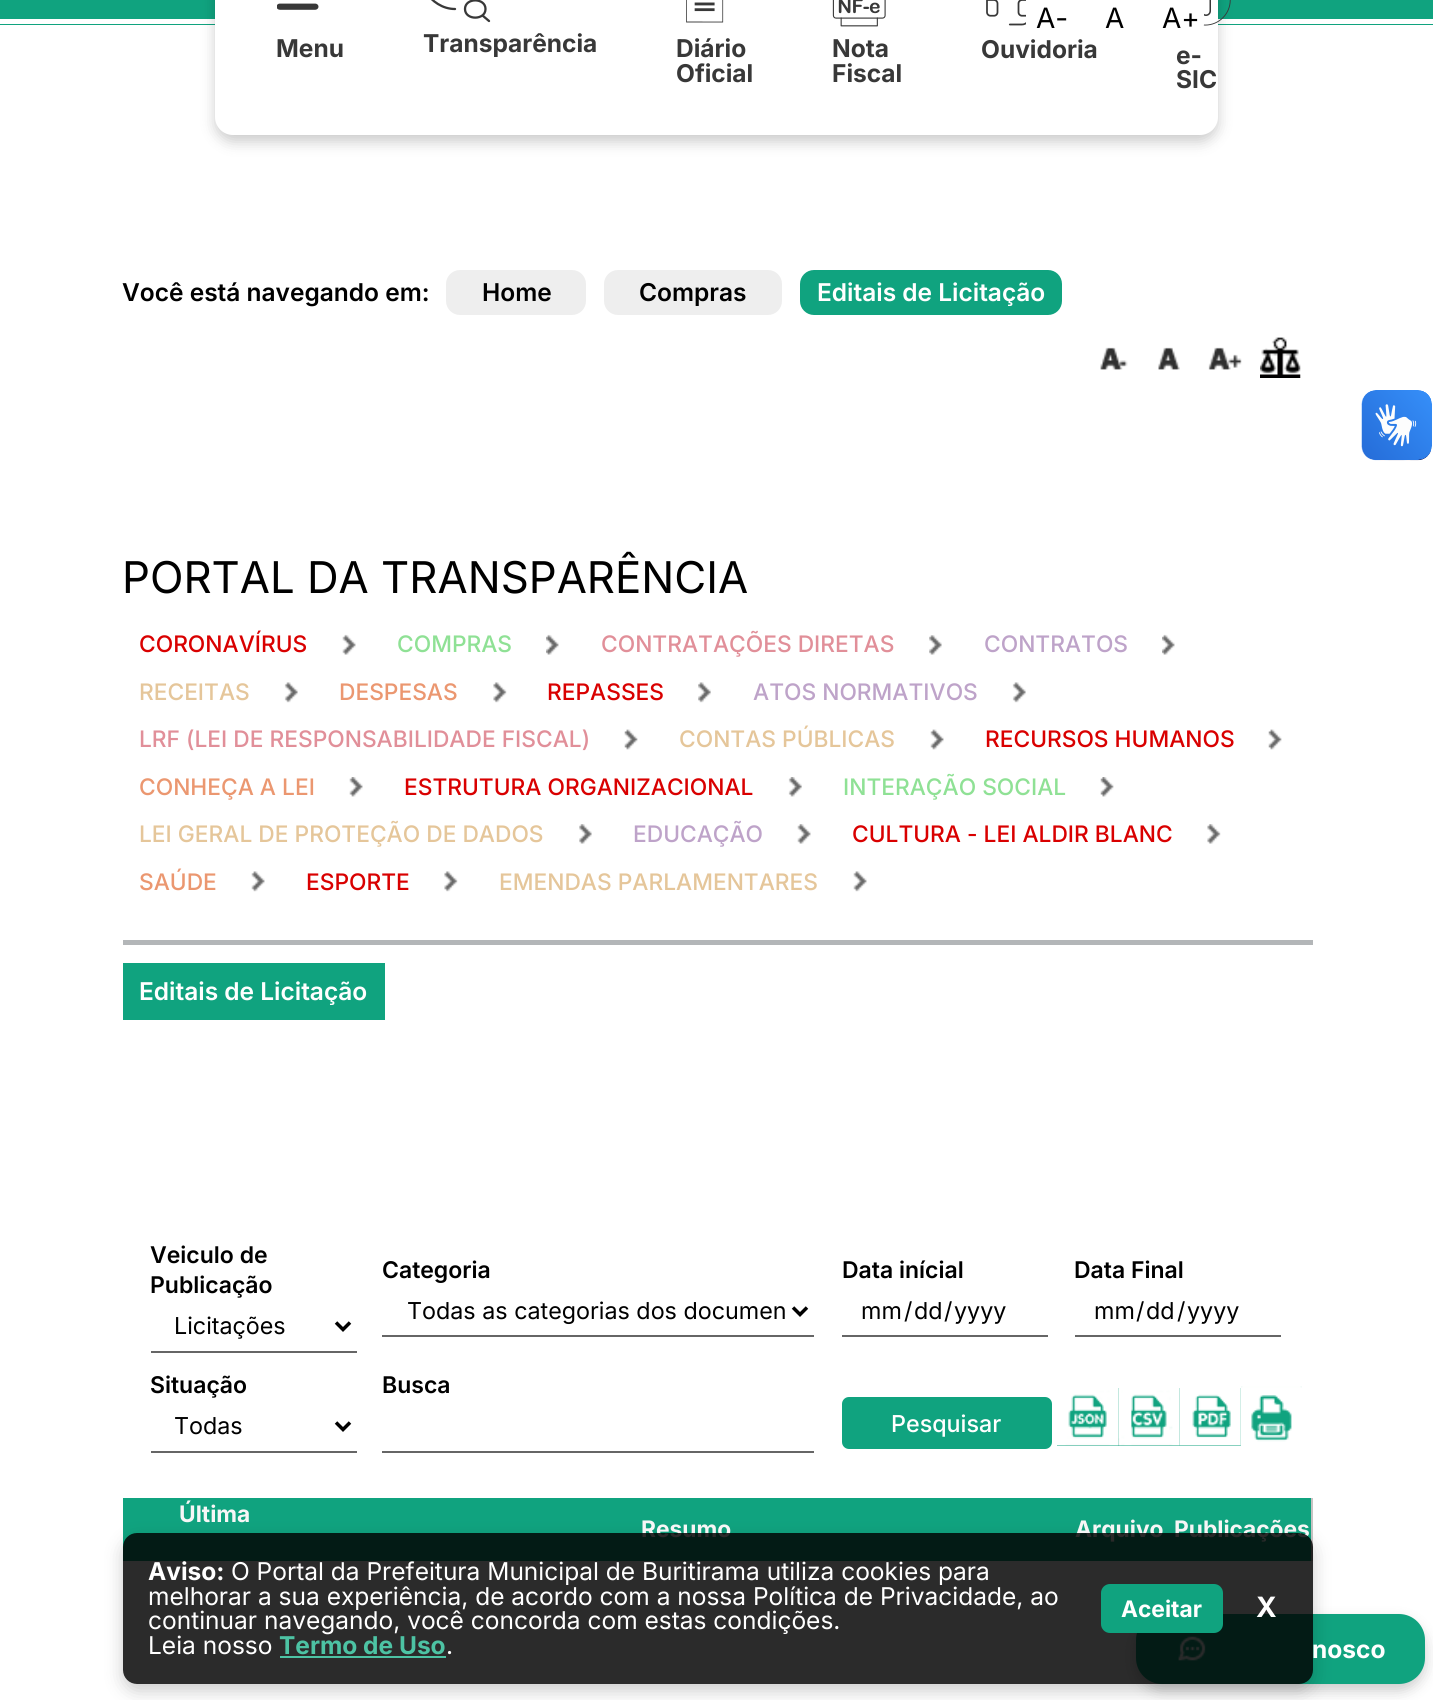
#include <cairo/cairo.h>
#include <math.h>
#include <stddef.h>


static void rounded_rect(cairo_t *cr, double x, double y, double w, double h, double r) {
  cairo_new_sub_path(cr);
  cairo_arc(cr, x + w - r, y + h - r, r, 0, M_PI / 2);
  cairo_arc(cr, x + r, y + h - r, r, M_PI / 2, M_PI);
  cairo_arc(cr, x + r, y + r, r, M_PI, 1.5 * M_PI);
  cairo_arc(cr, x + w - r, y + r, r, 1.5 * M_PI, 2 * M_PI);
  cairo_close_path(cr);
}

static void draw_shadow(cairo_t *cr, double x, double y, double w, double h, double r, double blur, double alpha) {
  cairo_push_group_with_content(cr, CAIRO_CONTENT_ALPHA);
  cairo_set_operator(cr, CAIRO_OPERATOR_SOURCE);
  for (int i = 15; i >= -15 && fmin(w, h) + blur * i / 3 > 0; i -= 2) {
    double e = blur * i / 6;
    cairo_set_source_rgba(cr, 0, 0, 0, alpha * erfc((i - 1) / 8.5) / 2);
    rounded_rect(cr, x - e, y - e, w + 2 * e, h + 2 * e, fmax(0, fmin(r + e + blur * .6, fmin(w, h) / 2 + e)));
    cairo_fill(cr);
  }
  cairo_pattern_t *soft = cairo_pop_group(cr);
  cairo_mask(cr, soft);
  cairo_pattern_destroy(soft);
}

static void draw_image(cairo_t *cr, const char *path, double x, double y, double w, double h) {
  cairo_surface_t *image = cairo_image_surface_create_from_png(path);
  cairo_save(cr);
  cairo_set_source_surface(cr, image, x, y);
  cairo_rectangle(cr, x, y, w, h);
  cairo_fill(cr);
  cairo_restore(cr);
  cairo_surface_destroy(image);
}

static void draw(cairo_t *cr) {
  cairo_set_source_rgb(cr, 1, 1, 1);
  cairo_paint(cr);
  cairo_set_source_rgb(cr, 16 / 255.0, 163 / 255.0, 127 / 255.0);
  cairo_rectangle(cr, 0, 0, 1433, 25);
  cairo_fill(cr);
  cairo_set_source_rgb(cr, 1, 1, 1);
  cairo_rectangle(cr, 0, 19, 1433, 5);
  cairo_fill(cr);
  cairo_set_source_rgb(cr, 0, 0, 0);
  draw_shadow(cr, 215, -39, 1003, 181, 18, 7, 0.2);
  cairo_set_source_rgb(cr, 1, 1, 1);
  rounded_rect(cr, 215, -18, 1003, 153, 18);
  cairo_fill(cr);
  draw_image(cr, "images/4.png", 986, 0, 41, 26);
  cairo_new_path(cr);
  cairo_move_to(cr, 1026, 0);
  cairo_line_to(cr, 1078, 0);
  cairo_line_to(cr, 1078, 24);
  cairo_curve_to(cr, 1078, 30, 1073, 35, 1067, 35);
  cairo_line_to(cr, 1037, 35);
  cairo_curve_to(cr, 1031, 35, 1026, 30, 1026, 24);
  cairo_close_path(cr);
  cairo_fill(cr);
  draw_image(cr, "images/5.png", 1203, 0, 28, 26);
  cairo_new_path(cr);
  cairo_move_to(cr, 1152, 0);
  cairo_line_to(cr, 1204, 0);
  cairo_line_to(cr, 1204, 24);
  cairo_curve_to(cr, 1204, 30, 1199, 35, 1193, 35);
  cairo_line_to(cr, 1163, 35);
  cairo_curve_to(cr, 1157, 35, 1152, 30, 1152, 24);
  cairo_close_path(cr);
  cairo_fill(cr);
  draw_image(cr, "images/1.png", 277, 3, 42, 7);
  cairo_new_path(cr);
  cairo_move_to(cr, 455, 9);
  cairo_curve_to(cr, 442.5, 9, 432, 1.5, 425, -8.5);
  cairo_curve_to(cr, 440.5, -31.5, 468, -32.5, 484.5, -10);
  cairo_move_to(cr, 482.5, 15.5);
  cairo_line_to(cr, 489, 21);
  cairo_move_to(cr, 465, 9);
  cairo_curve_to(cr, 465, 20.5, 485.5, 20.5, 485.5, 9);
  cairo_curve_to(cr, 485.5, -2.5, 465, -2.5, 465, 9);
  cairo_close_path(cr);
  cairo_set_source_rgb(cr, 56 / 255.0, 56 / 255.0, 56 / 255.0);
  cairo_set_line_width(cr, 2.3);
  cairo_set_line_cap(cr, CAIRO_LINE_CAP_ROUND);
  cairo_set_line_join(cr, CAIRO_LINE_JOIN_ROUND);
  cairo_stroke(cr);
  draw_image(cr, "images/2.png", 686, 0, 38, 23);
  draw_image(cr, "images/3.png", 832, 0, 54, 27);
  cairo_set_source_rgb(cr, 0, 0, 0);
  draw_shadow(cr, 1136, 1621, 289, 70, 26, 7, 0.2);
  cairo_set_source_rgb(cr, 16 / 255.0, 163 / 255.0, 127 / 255.0);
  rounded_rect(cr, 1136, 1614, 289, 70, 26);
  cairo_fill(cr);
  draw_image(cr, "images/6.png", 1178, 1636, 28, 25);
  cairo_set_source_rgb(cr, 238 / 255.0, 238 / 255.0, 238 / 255.0);
  rounded_rect(cr, 446, 270, 140, 45, 14);
  cairo_fill(cr);
  rounded_rect(cr, 604, 270, 178, 45, 14);
  cairo_fill(cr);
  cairo_set_source_rgb(cr, 16 / 255.0, 163 / 255.0, 127 / 255.0);
  rounded_rect(cr, 800, 270, 262, 45, 14);
  cairo_fill(cr);
  draw_image(cr, "images/7.png", 1100, 347, 28, 23);
  draw_image(cr, "images/8.png", 1158, 347, 22, 23);
  draw_image(cr, "images/9.png", 1208, 347, 34, 23);
  draw_image(cr, "images/10.png", 1260, 337, 41, 41);
  draw_image(cr, "images/11.png", 342, 634, 14, 21);
  draw_image(cr, "images/12.png", 546, 634, 13, 21);
  draw_image(cr, "images/13.png", 929, 635, 13, 20);
  draw_image(cr, "images/12.png", 1162, 634, 13, 21);
  draw_image(cr, "images/14.png", 284, 682, 14, 21);
  draw_image(cr, "images/15.png", 493, 682, 14, 21);
  draw_image(cr, "images/16.png", 698, 682, 13, 21);
  draw_image(cr, "images/14.png", 1012, 682, 14, 21);
  draw_image(cr, "images/17.png", 624, 729, 14, 21);
  draw_image(cr, "images/18.png", 930, 729, 14, 21);
  draw_image(cr, "images/17.png", 1268, 729, 14, 21);
  draw_image(cr, "images/19.png", 349, 777, 14, 20);
  draw_image(cr, "images/20.png", 788, 777, 14, 20);
  draw_image(cr, "images/21.png", 1100, 777, 14, 20);
  draw_image(cr, "images/22.png", 579, 824, 13, 20);
  draw_image(cr, "images/23.png", 797, 824, 14, 20);
  draw_image(cr, "images/24.png", 1207, 824, 14, 20);
  draw_image(cr, "images/25.png", 251, 871, 14, 21);
  draw_image(cr, "images/26.png", 444, 871, 14, 21);
  draw_image(cr, "images/27.png", 853, 871, 14, 21);
  cairo_set_source_rgb(cr, 179 / 255.0, 182 / 255.0, 184 / 255.0);
  cairo_rectangle(cr, 123, 940, 1190, 5);
  cairo_fill(cr);
  cairo_set_source_rgb(cr, 16 / 255.0, 163 / 255.0, 127 / 255.0);
  cairo_rectangle(cr, 123, 963, 262, 57);
  cairo_fill(cr);
  cairo_set_source_rgb(cr, 102 / 255.0, 102 / 255.0, 102 / 255.0);
  cairo_rectangle(cr, 151, 1351, 206, 2);
  cairo_fill(cr);
  cairo_new_path(cr);
  cairo_move_to(cr, 336, 1322.5);
  cairo_line_to(cr, 343, 1329.5);
  cairo_line_to(cr, 350, 1322.5);
  cairo_set_source_rgb(cr, 0, 0, 0);
  cairo_set_line_width(cr, 3.5);
  cairo_set_line_cap(cr, CAIRO_LINE_CAP_BUTT);
  cairo_set_line_join(cr, CAIRO_LINE_JOIN_MITER);
  cairo_stroke(cr);
  cairo_set_source_rgb(cr, 102 / 255.0, 102 / 255.0, 102 / 255.0);
  cairo_rectangle(cr, 382, 1335, 432, 2);
  cairo_fill(cr);
  cairo_new_path(cr);
  cairo_move_to(cr, 793, 1307.5);
  cairo_line_to(cr, 800, 1314.5);
  cairo_line_to(cr, 807, 1307.5);
  cairo_set_source_rgb(cr, 0, 0, 0);
  cairo_stroke(cr);
  cairo_set_source_rgb(cr, 102 / 255.0, 102 / 255.0, 102 / 255.0);
  cairo_rectangle(cr, 842, 1335, 206, 2);
  cairo_fill(cr);
  cairo_rectangle(cr, 1075, 1335, 206, 2);
  cairo_fill(cr);
  cairo_rectangle(cr, 151, 1451, 206, 2);
  cairo_fill(cr);
  cairo_new_path(cr);
  cairo_move_to(cr, 336, 1422.5);
  cairo_line_to(cr, 343, 1429.5);
  cairo_line_to(cr, 350, 1422.5);
  cairo_set_source_rgb(cr, 0, 0, 0);
  cairo_stroke(cr);
  cairo_set_source_rgb(cr, 102 / 255.0, 102 / 255.0, 102 / 255.0);
  cairo_rectangle(cr, 382, 1451, 432, 2);
  cairo_fill(cr);
  cairo_set_source_rgb(cr, 16 / 255.0, 163 / 255.0, 127 / 255.0);
  rounded_rect(cr, 842, 1397, 210, 52, 7);
  cairo_fill(cr);
  cairo_rectangle(cr, 1057, 1390, 61, 56);
  cairo_fill(cr);
  draw_image(cr, "images/28.png", 1057, 1388, 61, 58);
  cairo_rectangle(cr, 1118, 1388, 123, 58);
  cairo_fill(cr);
  draw_image(cr, "images/29.png", 1118, 1388, 62, 58);
  cairo_rectangle(cr, 1241, 1386, 61, 56);
  cairo_fill(cr);
  draw_image(cr, "images/31.png", 1179, 1388, 62, 58);
  draw_image(cr, "images/30.png", 1240, 1386, 62, 61);
  cairo_rectangle(cr, 123, 1498, 1188, 63);
  cairo_fill(cr);
  cairo_set_source_rgb(cr, 199 / 255.0, 195 / 255.0, 195 / 255.0);
  cairo_rectangle(cr, 1311, 1498, 2, 63);
  cairo_fill(cr);
  draw_image(cr, "images/32.png", 1361, 390, 71, 71);
  draw_image(cr, "images/33.png", 1362, 390, 70, 70);
  cairo_save(cr);
  cairo_set_fill_rule(cr, CAIRO_FILL_RULE_EVEN_ODD);
  cairo_new_path(cr);
  cairo_move_to(cr, 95, 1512);
  cairo_line_to(cr, 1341, 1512);
  cairo_line_to(cr, 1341, 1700);
  cairo_line_to(cr, 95, 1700);
  cairo_close_path(cr);
  cairo_move_to(cr, 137, 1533);
  cairo_line_to(cr, 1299, 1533);
  cairo_curve_to(cr, 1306.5, 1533, 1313, 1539.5, 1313, 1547);
  cairo_line_to(cr, 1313, 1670);
  cairo_curve_to(cr, 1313, 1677.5, 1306.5, 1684, 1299, 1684);
  cairo_line_to(cr, 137, 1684);
  cairo_curve_to(cr, 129.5, 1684, 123, 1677.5, 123, 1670);
  cairo_line_to(cr, 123, 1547);
  cairo_curve_to(cr, 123, 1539.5, 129.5, 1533, 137, 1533);
  cairo_close_path(cr);
  cairo_clip(cr);
  cairo_set_source_rgb(cr, 0, 0, 0);
  draw_shadow(cr, 123, 1540, 1190, 151, 14, 9, 0.2);
  cairo_restore(cr);
  cairo_select_font_face(cr, "Inter", CAIRO_FONT_SLANT_NORMAL, CAIRO_FONT_WEIGHT_NORMAL);
  cairo_set_font_size(cr, 28);
  cairo_set_source_rgb(cr, 0, 0, 0);
  cairo_move_to(cr, 1036, 28);
  cairo_show_text(cr, "A-");
  cairo_move_to(cr, 1105, 28);
  cairo_show_text(cr, "A");
  cairo_move_to(cr, 1162, 28);
  cairo_show_text(cr, "A+");
  cairo_select_font_face(cr, "Inter", CAIRO_FONT_SLANT_NORMAL, CAIRO_FONT_WEIGHT_BOLD);
  cairo_set_font_size(cr, 24.5);
  cairo_set_source_rgb(cr, 56 / 255.0, 56 / 255.0, 56 / 255.0);
  cairo_move_to(cr, 276, 57);
  cairo_show_text(cr, "Menu");
  cairo_move_to(cr, 423, 52);
  cairo_show_text(cr, "Transparência");
  cairo_move_to(cr, 676, 57);
  cairo_show_text(cr, "Diário");
  cairo_move_to(cr, 676, 82);
  cairo_show_text(cr, "Oficial");
  cairo_move_to(cr, 832, 57);
  cairo_show_text(cr, "Nota");
  cairo_move_to(cr, 832, 82);
  cairo_show_text(cr, "Fiscal");
  cairo_move_to(cr, 981, 58);
  cairo_show_text(cr, "Ouvidoria");
  cairo_move_to(cr, 1176, 64);
  cairo_show_text(cr, "e-");
  cairo_move_to(cr, 1176, 88);
  cairo_show_text(cr, "SIC");
  cairo_set_source_rgb(cr, 1, 1, 1);
  cairo_move_to(cr, 1312, 1658);
  cairo_show_text(cr, "nosco");
  cairo_select_font_face(cr, "Inter SemiBold", CAIRO_FONT_SLANT_NORMAL, CAIRO_FONT_WEIGHT_NORMAL);
  cairo_set_source_rgb(cr, 0, 0, 0);
  cairo_move_to(cr, 122, 301);
  cairo_show_text(cr, "Você está navegando em:");
  cairo_move_to(cr, 482, 301);
  cairo_show_text(cr, "Home");
  cairo_move_to(cr, 639, 301);
  cairo_show_text(cr, "Compras");
  cairo_set_source_rgb(cr, 1, 1, 1);
  cairo_move_to(cr, 817, 301);
  cairo_show_text(cr, "Editais de Licitação");
  cairo_select_font_face(cr, "Inter", CAIRO_FONT_SLANT_NORMAL, CAIRO_FONT_WEIGHT_NORMAL);
  cairo_set_font_size(cr, 43.75);
  cairo_set_source_rgb(cr, 0, 0, 0);
  cairo_move_to(cr, 122, 593);
  cairo_show_text(cr, "PORTAL DA TRANSPARÊNCIA");
  cairo_select_font_face(cr, "Inter Medium", CAIRO_FONT_SLANT_NORMAL, CAIRO_FONT_WEIGHT_NORMAL);
  cairo_set_font_size(cr, 22.75);
  cairo_set_source_rgb(cr, 217 / 255.0, 0, 0);
  cairo_move_to(cr, 139, 652);
  cairo_show_text(cr, "CORONAVÍRUS");
  cairo_set_source_rgb(cr, 143 / 255.0, 225 / 255.0, 149 / 255.0);
  cairo_move_to(cr, 397, 652);
  cairo_show_text(cr, "COMPRAS");
  cairo_set_source_rgb(cr, 225 / 255.0, 143 / 255.0, 153 / 255.0);
  cairo_move_to(cr, 601, 652);
  cairo_show_text(cr, "CONTRATAÇÕES DIRETAS");
  cairo_set_source_rgb(cr, 190 / 255.0, 163 / 255.0, 201 / 255.0);
  cairo_move_to(cr, 984, 652);
  cairo_show_text(cr, "CONTRATOS");
  cairo_set_source_rgb(cr, 229 / 255.0, 198 / 255.0, 154 / 255.0);
  cairo_move_to(cr, 139, 700);
  cairo_show_text(cr, "RECEITAS");
  cairo_set_source_rgb(cr, 235 / 255.0, 151 / 255.0, 112 / 255.0);
  cairo_move_to(cr, 339, 700);
  cairo_show_text(cr, "DESPESAS");
  cairo_set_source_rgb(cr, 217 / 255.0, 0, 0);
  cairo_move_to(cr, 547, 700);
  cairo_show_text(cr, "REPASSES");
  cairo_set_source_rgb(cr, 190 / 255.0, 163 / 255.0, 201 / 255.0);
  cairo_move_to(cr, 753, 700);
  cairo_show_text(cr, "ATOS NORMATIVOS");
  cairo_set_source_rgb(cr, 225 / 255.0, 143 / 255.0, 153 / 255.0);
  cairo_move_to(cr, 139, 747);
  cairo_show_text(cr, "LRF (LEI DE RESPONSABILIDADE FISCAL)");
  cairo_set_source_rgb(cr, 229 / 255.0, 198 / 255.0, 154 / 255.0);
  cairo_move_to(cr, 679, 747);
  cairo_show_text(cr, "CONTAS PÚBLICAS");
  cairo_set_source_rgb(cr, 217 / 255.0, 0, 0);
  cairo_move_to(cr, 985, 747);
  cairo_show_text(cr, "RECURSOS HUMANOS");
  cairo_set_source_rgb(cr, 235 / 255.0, 151 / 255.0, 112 / 255.0);
  cairo_move_to(cr, 139, 795);
  cairo_show_text(cr, "CONHEÇA A LEI");
  cairo_set_source_rgb(cr, 217 / 255.0, 0, 0);
  cairo_move_to(cr, 404, 795);
  cairo_show_text(cr, "ESTRUTURA ORGANIZACIONAL");
  cairo_set_source_rgb(cr, 143 / 255.0, 225 / 255.0, 149 / 255.0);
  cairo_move_to(cr, 843, 795);
  cairo_show_text(cr, "INTERAÇÃO SOCIAL");
  cairo_set_source_rgb(cr, 229 / 255.0, 198 / 255.0, 154 / 255.0);
  cairo_move_to(cr, 139, 842);
  cairo_show_text(cr, "LEI GERAL DE PROTEÇÃO DE DADOS");
  cairo_set_source_rgb(cr, 190 / 255.0, 163 / 255.0, 201 / 255.0);
  cairo_move_to(cr, 633, 842);
  cairo_show_text(cr, "EDUCAÇÃO");
  cairo_set_source_rgb(cr, 217 / 255.0, 0, 0);
  cairo_move_to(cr, 852, 842);
  cairo_show_text(cr, "CULTURA - LEI ALDIR BLANC");
  cairo_set_source_rgb(cr, 235 / 255.0, 151 / 255.0, 112 / 255.0);
  cairo_move_to(cr, 139, 890);
  cairo_show_text(cr, "SAÚDE");
  cairo_set_source_rgb(cr, 217 / 255.0, 0, 0);
  cairo_move_to(cr, 306, 890);
  cairo_show_text(cr, "ESPORTE");
  cairo_set_source_rgb(cr, 229 / 255.0, 198 / 255.0, 154 / 255.0);
  cairo_move_to(cr, 499, 890);
  cairo_show_text(cr, "EMENDAS PARLAMENTARES");
  cairo_select_font_face(cr, "Inter SemiBold", CAIRO_FONT_SLANT_NORMAL, CAIRO_FONT_WEIGHT_NORMAL);
  cairo_set_font_size(cr, 24.5);
  cairo_set_source_rgb(cr, 1, 1, 1);
  cairo_move_to(cr, 139, 1000);
  cairo_show_text(cr, "Editais de Licitação");
  cairo_set_font_size(cr, 23);
  cairo_set_source_rgb(cr, 0, 0, 0);
  cairo_move_to(cr, 150, 1263);
  cairo_show_text(cr, "Veiculo de");
  cairo_move_to(cr, 150, 1293);
  cairo_show_text(cr, "Publicação");
  cairo_select_font_face(cr, "Inter", CAIRO_FONT_SLANT_NORMAL, CAIRO_FONT_WEIGHT_NORMAL);
  cairo_set_font_size(cr, 23.3);
  cairo_move_to(cr, 174, 1334);
  cairo_show_text(cr, "Licitações");
  cairo_select_font_face(cr, "Inter SemiBold", CAIRO_FONT_SLANT_NORMAL, CAIRO_FONT_WEIGHT_NORMAL);
  cairo_set_font_size(cr, 23);
  cairo_move_to(cr, 382, 1278);
  cairo_show_text(cr, "Categoria");
  cairo_select_font_face(cr, "Inter", CAIRO_FONT_SLANT_NORMAL, CAIRO_FONT_WEIGHT_NORMAL);
  cairo_set_font_size(cr, 23.3);
  cairo_move_to(cr, 407, 1319);
  cairo_show_text(cr, "Todas as categorias dos documen");
  cairo_select_font_face(cr, "Inter SemiBold", CAIRO_FONT_SLANT_NORMAL, CAIRO_FONT_WEIGHT_NORMAL);
  cairo_set_font_size(cr, 23);
  cairo_move_to(cr, 842, 1278);
  cairo_show_text(cr, "Data inícial");
  cairo_select_font_face(cr, "Inter", CAIRO_FONT_SLANT_NORMAL, CAIRO_FONT_WEIGHT_NORMAL);
  cairo_set_font_size(cr, 23.3);
  cairo_move_to(cr, 861, 1319);
  cairo_show_text(cr, "mm");
  cairo_move_to(cr, 904, 1319);
  cairo_show_text(cr, "/");
  cairo_move_to(cr, 914, 1319);
  cairo_show_text(cr, "dd");
  cairo_move_to(cr, 944, 1319);
  cairo_show_text(cr, "/");
  cairo_move_to(cr, 954, 1319);
  cairo_show_text(cr, "yyyy");
  cairo_select_font_face(cr, "Inter SemiBold", CAIRO_FONT_SLANT_NORMAL, CAIRO_FONT_WEIGHT_NORMAL);
  cairo_set_font_size(cr, 23);
  cairo_move_to(cr, 1074, 1278);
  cairo_show_text(cr, "Data Final");
  cairo_select_font_face(cr, "Inter", CAIRO_FONT_SLANT_NORMAL, CAIRO_FONT_WEIGHT_NORMAL);
  cairo_set_font_size(cr, 23.3);
  cairo_move_to(cr, 1094, 1319);
  cairo_show_text(cr, "mm");
  cairo_move_to(cr, 1136, 1319);
  cairo_show_text(cr, "/");
  cairo_move_to(cr, 1146, 1319);
  cairo_show_text(cr, "dd");
  cairo_move_to(cr, 1177, 1319);
  cairo_show_text(cr, "/");
  cairo_move_to(cr, 1187, 1319);
  cairo_show_text(cr, "yyyy");
  cairo_select_font_face(cr, "Inter SemiBold", CAIRO_FONT_SLANT_NORMAL, CAIRO_FONT_WEIGHT_NORMAL);
  cairo_set_font_size(cr, 23);
  cairo_move_to(cr, 150, 1393);
  cairo_show_text(cr, "Situação");
  cairo_select_font_face(cr, "Inter", CAIRO_FONT_SLANT_NORMAL, CAIRO_FONT_WEIGHT_NORMAL);
  cairo_set_font_size(cr, 23.3);
  cairo_move_to(cr, 174, 1434);
  cairo_show_text(cr, "Todas");
  cairo_select_font_face(cr, "Inter SemiBold", CAIRO_FONT_SLANT_NORMAL, CAIRO_FONT_WEIGHT_NORMAL);
  cairo_set_font_size(cr, 23);
  cairo_move_to(cr, 382, 1393);
  cairo_show_text(cr, "Busca");
  cairo_select_font_face(cr, "Inter Medium", CAIRO_FONT_SLANT_NORMAL, CAIRO_FONT_WEIGHT_NORMAL);
  cairo_set_font_size(cr, 23.3);
  cairo_set_source_rgb(cr, 1, 1, 1);
  cairo_move_to(cr, 891, 1432);
  cairo_show_text(cr, "Pesquisar");
  cairo_select_font_face(cr, "Inter", CAIRO_FONT_SLANT_NORMAL, CAIRO_FONT_WEIGHT_BOLD);
  cairo_set_font_size(cr, 22.75);
  cairo_set_source_rgb(cr, 247 / 255.0, 246 / 255.0, 246 / 255.0);
  cairo_move_to(cr, 179, 1522);
  cairo_show_text(cr, "Última");
  cairo_move_to(cr, 641, 1537);
  cairo_show_text(cr, "Resumo");
  cairo_move_to(cr, 1075, 1537);
  cairo_show_text(cr, "Arquivo");
  cairo_move_to(cr, 1174, 1537);
  cairo_show_text(cr, "Publicações");
  cairo_set_source_rgba(cr, 0, 0, 0, 0.83);
  rounded_rect(cr, 123, 1533, 1190, 151, 14);
  cairo_fill(cr);
  cairo_set_font_size(cr, 24.5);
  cairo_set_source_rgb(cr, 1, 1, 1);
  cairo_move_to(cr, 148, 1580);
  cairo_show_text(cr, "Aviso:");
  cairo_select_font_face(cr, "Inter", CAIRO_FONT_SLANT_NORMAL, CAIRO_FONT_WEIGHT_NORMAL);
  cairo_move_to(cr, 231, 1580);
  cairo_show_text(cr, "O Portal da Prefeitura Municipal de Buritirama utiliza cookies para");
  cairo_move_to(cr, 148, 1605);
  cairo_show_text(cr, "melhorar a sua experiência, de acordo com a nossa Política de Privacidade, ao");
  cairo_move_to(cr, 148, 1629);
  cairo_show_text(cr, "continuar navegando, você concorda com estas condições.");
  cairo_move_to(cr, 148, 1654);
  cairo_show_text(cr, "Leia nosso");
  cairo_select_font_face(cr, "Inter", CAIRO_FONT_SLANT_NORMAL, CAIRO_FONT_WEIGHT_BOLD);
  cairo_set_source_rgb(cr, 77 / 255.0, 195 / 255.0, 164 / 255.0);
  cairo_move_to(cr, 279, 1654);
  cairo_show_text(cr, "Termo de Uso");
  cairo_rectangle(cr, 280, 1656, 166, 2);
  cairo_fill(cr);
  cairo_select_font_face(cr, "Inter", CAIRO_FONT_SLANT_NORMAL, CAIRO_FONT_WEIGHT_NORMAL);
  cairo_set_source_rgb(cr, 1, 1, 1);
  cairo_move_to(cr, 446, 1654);
  cairo_show_text(cr, ".");
  cairo_set_source_rgb(cr, 16 / 255.0, 163 / 255.0, 127 / 255.0);
  rounded_rect(cr, 1101, 1584, 122, 49, 9);
  cairo_fill(cr);
  cairo_select_font_face(cr, "Inter", CAIRO_FONT_SLANT_NORMAL, CAIRO_FONT_WEIGHT_BOLD);
  cairo_set_font_size(cr, 22.75);
  cairo_set_source_rgb(cr, 1, 1, 1);
  cairo_move_to(cr, 1121, 1617);
  cairo_show_text(cr, "Aceitar");
  cairo_set_font_size(cr, 28);
  cairo_move_to(cr, 1256, 1617);
  cairo_show_text(cr, "X");
}

int main(void) {
  cairo_surface_t *surface = cairo_image_surface_create(CAIRO_FORMAT_RGB24, 1433, 1700);
  cairo_t *cr = cairo_create(surface);
  cairo_font_options_t *options = cairo_font_options_create();
  cairo_font_options_set_hint_metrics(options, CAIRO_HINT_METRICS_OFF);
  cairo_font_options_set_hint_style(options, CAIRO_HINT_STYLE_NONE);
  cairo_set_font_options(cr, options);
  cairo_set_miter_limit(cr, 4);
  draw(cr);
  cairo_surface_write_to_png(surface, "out.png");
  cairo_font_options_destroy(options);
  cairo_destroy(cr);
  cairo_surface_destroy(surface);
  return 0;
}
